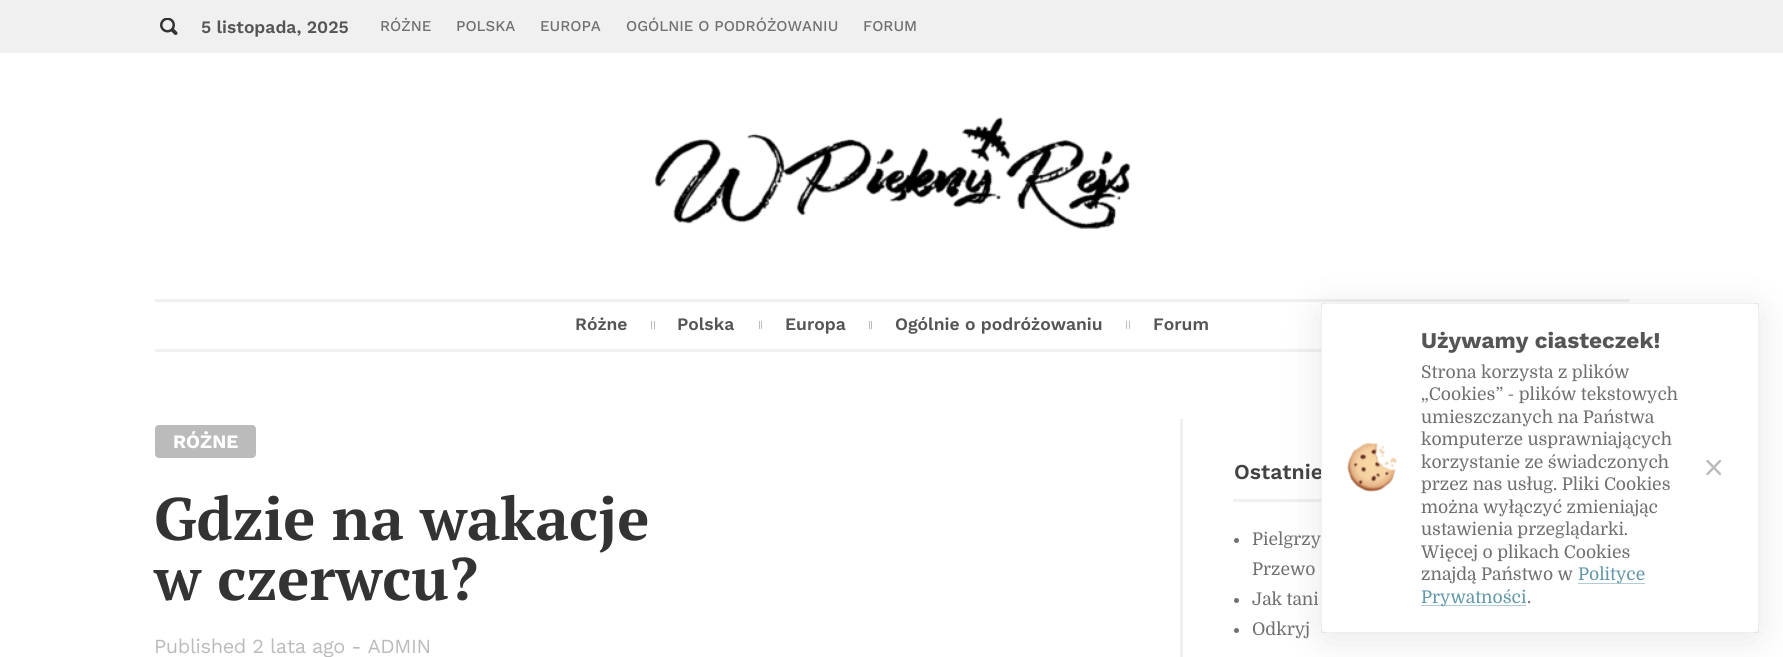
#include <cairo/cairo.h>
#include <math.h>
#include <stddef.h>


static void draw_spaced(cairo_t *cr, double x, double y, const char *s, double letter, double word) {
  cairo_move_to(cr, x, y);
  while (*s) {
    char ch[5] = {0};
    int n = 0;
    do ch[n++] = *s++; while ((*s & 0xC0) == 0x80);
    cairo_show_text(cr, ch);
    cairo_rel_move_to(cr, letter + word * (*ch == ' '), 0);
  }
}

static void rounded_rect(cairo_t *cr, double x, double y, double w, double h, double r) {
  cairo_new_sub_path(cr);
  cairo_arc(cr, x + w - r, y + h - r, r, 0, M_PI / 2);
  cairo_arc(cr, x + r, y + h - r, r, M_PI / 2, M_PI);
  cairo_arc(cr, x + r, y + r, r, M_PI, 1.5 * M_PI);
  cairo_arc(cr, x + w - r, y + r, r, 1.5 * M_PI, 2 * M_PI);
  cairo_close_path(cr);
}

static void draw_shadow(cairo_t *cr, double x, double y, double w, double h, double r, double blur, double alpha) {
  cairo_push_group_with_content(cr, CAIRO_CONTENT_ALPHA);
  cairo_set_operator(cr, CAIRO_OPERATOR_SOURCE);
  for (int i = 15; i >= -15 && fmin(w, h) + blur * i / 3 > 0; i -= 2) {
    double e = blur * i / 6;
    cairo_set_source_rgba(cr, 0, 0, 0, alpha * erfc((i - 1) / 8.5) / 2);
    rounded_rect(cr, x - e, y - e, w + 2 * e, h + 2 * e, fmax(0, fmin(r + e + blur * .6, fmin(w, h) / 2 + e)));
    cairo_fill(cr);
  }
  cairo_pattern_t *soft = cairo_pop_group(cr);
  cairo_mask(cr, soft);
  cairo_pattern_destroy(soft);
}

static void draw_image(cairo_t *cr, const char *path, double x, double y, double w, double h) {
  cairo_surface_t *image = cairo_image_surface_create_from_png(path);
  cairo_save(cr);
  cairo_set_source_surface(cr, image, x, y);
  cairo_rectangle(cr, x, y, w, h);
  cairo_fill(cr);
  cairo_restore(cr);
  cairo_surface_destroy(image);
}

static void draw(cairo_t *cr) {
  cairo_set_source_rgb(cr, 1, 1, 1);
  cairo_paint(cr);
  cairo_set_source_rgb(cr, 240 / 255.0, 240 / 255.0, 240 / 255.0);
  cairo_rectangle(cr, 0, 0, 1783, 53);
  cairo_fill(cr);
  draw_image(cr, "images/1.png", 160, 18, 18, 17);
  draw_image(cr, "images/2.png", 654, 117, 477, 112);
  cairo_rectangle(cr, 155, 349, 1475, 3);
  cairo_fill(cr);
  cairo_rectangle(cr, 155, 299, 1475, 3);
  cairo_fill(cr);
  cairo_set_source_rgb(cr, 187 / 255.0, 187 / 255.0, 187 / 255.0);
  cairo_rectangle(cr, 654, 321, 1, 8);
  cairo_fill(cr);
  cairo_rectangle(cr, 651, 321, 1, 8);
  cairo_fill(cr);
  cairo_rectangle(cr, 761, 321, 1, 8);
  cairo_fill(cr);
  cairo_rectangle(cr, 759, 321, 1, 8);
  cairo_fill(cr);
  cairo_rectangle(cr, 871, 321, 1, 8);
  cairo_fill(cr);
  cairo_rectangle(cr, 869, 321, 1, 8);
  cairo_fill(cr);
  cairo_rectangle(cr, 1129, 321, 1, 8);
  cairo_fill(cr);
  cairo_rectangle(cr, 1126, 321, 1, 8);
  cairo_fill(cr);
  rounded_rect(cr, 155, 425, 101, 33, 4);
  cairo_fill(cr);
  cairo_set_source_rgb(cr, 240 / 255.0, 240 / 255.0, 240 / 255.0);
  cairo_rectangle(cr, 1180, 419, 3, 238);
  cairo_fill(cr);
  cairo_rectangle(cr, 1233, 499, 397, 3);
  cairo_fill(cr);
  cairo_set_source_rgb(cr, 112 / 255.0, 112 / 255.0, 112 / 255.0);
  cairo_arc(cr, 1236.5, 540.5, 2.5, 0, 2 * M_PI);
  cairo_fill(cr);
  cairo_arc(cr, 1236.5, 600.5, 2.5, 0, 2 * M_PI);
  cairo_fill(cr);
  cairo_arc(cr, 1236.5, 630.5, 2.5, 0, 2 * M_PI);
  cairo_fill(cr);
  cairo_save(cr);
  cairo_set_fill_rule(cr, CAIRO_FILL_RULE_EVEN_ODD);
  cairo_new_path(cr);
  cairo_move_to(cr, 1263, 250);
  cairo_line_to(cr, 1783, 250);
  cairo_line_to(cr, 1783, 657);
  cairo_line_to(cr, 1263, 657);
  cairo_close_path(cr);
  cairo_move_to(cr, 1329, 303);
  cairo_line_to(cr, 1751, 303);
  cairo_curve_to(cr, 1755.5, 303, 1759, 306.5, 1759, 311);
  cairo_line_to(cr, 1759, 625);
  cairo_curve_to(cr, 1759, 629.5, 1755.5, 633, 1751, 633);
  cairo_line_to(cr, 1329, 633);
  cairo_curve_to(cr, 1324.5, 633, 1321, 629.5, 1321, 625);
  cairo_line_to(cr, 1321, 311);
  cairo_curve_to(cr, 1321, 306.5, 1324.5, 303, 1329, 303);
  cairo_close_path(cr);
  cairo_clip(cr);
  cairo_set_source_rgb(cr, 0, 0, 0);
  draw_shadow(cr, 1321, 308, 438, 330, 8, 19, 0.1);
  cairo_restore(cr);
  cairo_select_font_face(cr, "Work Sans SemiBold", CAIRO_FONT_SLANT_NORMAL, CAIRO_FONT_WEIGHT_NORMAL);
  cairo_set_font_size(cr, 17.5);
  cairo_set_source_rgb(cr, 85 / 255.0, 85 / 255.0, 85 / 255.0);
  cairo_move_to(cr, 201, 33);
  cairo_show_text(cr, "5 listopada, 2025");
  cairo_select_font_face(cr, "Work Sans Medium", CAIRO_FONT_SLANT_NORMAL, CAIRO_FONT_WEIGHT_NORMAL);
  cairo_set_font_size(cr, 15);
  cairo_set_source_rgb(cr, 112 / 255.0, 112 / 255.0, 112 / 255.0);
  cairo_move_to(cr, 380, 31);
  cairo_show_text(cr, "RÓŻNE");
  cairo_move_to(cr, 456, 31);
  cairo_show_text(cr, "POLSKA");
  cairo_move_to(cr, 540, 31);
  cairo_show_text(cr, "EUROPA");
  cairo_move_to(cr, 626, 31);
  cairo_show_text(cr, "OGÓLNIE O PODRÓŻOWANIU");
  cairo_move_to(cr, 863, 31);
  cairo_show_text(cr, "FORUM");
  cairo_select_font_face(cr, "Work Sans SemiBold", CAIRO_FONT_SLANT_NORMAL, CAIRO_FONT_WEIGHT_NORMAL);
  cairo_set_font_size(cr, 17.5);
  cairo_set_source_rgb(cr, 85 / 255.0, 85 / 255.0, 85 / 255.0);
  cairo_move_to(cr, 575, 330);
  cairo_show_text(cr, "Różne");
  cairo_move_to(cr, 677, 330);
  cairo_show_text(cr, "Polska");
  cairo_move_to(cr, 785, 330);
  cairo_show_text(cr, "Europa");
  cairo_move_to(cr, 895, 330);
  cairo_show_text(cr, "Ogólnie o podróżowaniu");
  cairo_move_to(cr, 1153, 330);
  cairo_show_text(cr, "Forum");
  cairo_select_font_face(cr, "Work Sans", CAIRO_FONT_SLANT_NORMAL, CAIRO_FONT_WEIGHT_BOLD);
  cairo_set_font_size(cr, 19);
  cairo_set_source_rgb(cr, 1, 1, 1);
  cairo_move_to(cr, 173, 448);
  cairo_show_text(cr, "RÓŻNE");
  cairo_select_font_face(cr, "PT Serif", CAIRO_FONT_SLANT_NORMAL, CAIRO_FONT_WEIGHT_BOLD);
  cairo_set_font_size(cr, 60);
  cairo_set_source_rgb(cr, 51 / 255.0, 51 / 255.0, 51 / 255.0);
  cairo_move_to(cr, 154, 540);
  cairo_show_text(cr, "Gdzie na wakacje");
  cairo_move_to(cr, 154, 600);
  cairo_show_text(cr, "w czerwcu?");
  cairo_select_font_face(cr, "Work Sans", CAIRO_FONT_SLANT_NORMAL, CAIRO_FONT_WEIGHT_NORMAL);
  cairo_set_font_size(cr, 20);
  cairo_set_source_rgb(cr, 187 / 255.0, 187 / 255.0, 187 / 255.0);
  draw_spaced(cr, 154, 653, "Published 2 lata ago - ADMIN", -0.4, 0);
  cairo_select_font_face(cr, "Work Sans SemiBold", CAIRO_FONT_SLANT_NORMAL, CAIRO_FONT_WEIGHT_NORMAL);
  cairo_set_font_size(cr, 21.25);
  cairo_set_source_rgb(cr, 67 / 255.0, 67 / 255.0, 67 / 255.0);
  cairo_move_to(cr, 1234, 479);
  cairo_show_text(cr, "Ostatnie");
  cairo_select_font_face(cr, "Domine", CAIRO_FONT_SLANT_NORMAL, CAIRO_FONT_WEIGHT_NORMAL);
  cairo_set_font_size(cr, 17.5);
  cairo_set_source_rgb(cr, 112 / 255.0, 112 / 255.0, 112 / 255.0);
  cairo_move_to(cr, 1252, 545);
  cairo_show_text(cr, "Pielgrzy");
  cairo_move_to(cr, 1252, 575);
  cairo_show_text(cr, "Przewo");
  cairo_move_to(cr, 1252, 605);
  cairo_show_text(cr, "Jak tani");
  cairo_move_to(cr, 1252, 635);
  cairo_show_text(cr, "Odkryj");
  cairo_set_source_rgba(cr, 1, 1, 1, 0.97);
  rounded_rect(cr, 1321, 303, 438, 330, 8);
  cairo_fill(cr);
  cairo_rectangle(cr, 1321.5, 303.5, 437, 329);
  cairo_set_source_rgba(cr, 0, 0, 0, 0.06);
  cairo_set_line_width(cr, 1);
  cairo_stroke(cr);
  cairo_select_font_face(cr, "Work Sans", CAIRO_FONT_SLANT_NORMAL, CAIRO_FONT_WEIGHT_BOLD);
  cairo_set_font_size(cr, 22.5);
  cairo_set_source_rgb(cr, 85 / 255.0, 85 / 255.0, 85 / 255.0);
  cairo_move_to(cr, 1421, 348);
  cairo_show_text(cr, "Używamy ciasteczek!");
  draw_image(cr, "images/3.png", 1347, 442, 50, 50);
  cairo_select_font_face(cr, "Domine", CAIRO_FONT_SLANT_NORMAL, CAIRO_FONT_WEIGHT_NORMAL);
  cairo_set_font_size(cr, 17.5);
  cairo_set_source_rgb(cr, 112 / 255.0, 112 / 255.0, 112 / 255.0);
  cairo_move_to(cr, 1421, 378);
  cairo_show_text(cr, "Strona korzysta z plików");
  cairo_move_to(cr, 1421, 400);
  cairo_show_text(cr, "„Cookies” - plików tekstowych");
  cairo_move_to(cr, 1421, 423);
  cairo_show_text(cr, "umieszczanych na Państwa");
  cairo_move_to(cr, 1421, 445);
  cairo_show_text(cr, "komputerze usprawniających");
  cairo_move_to(cr, 1421, 468);
  cairo_show_text(cr, "korzystanie ze świadczonych");
  cairo_move_to(cr, 1421, 490);
  cairo_show_text(cr, "przez nas usług. Pliki Cookies");
  cairo_move_to(cr, 1421, 513);
  cairo_show_text(cr, "można wyłączyć zmieniając");
  cairo_move_to(cr, 1421, 535);
  cairo_show_text(cr, "ustawienia przeglądarki.");
  cairo_move_to(cr, 1421, 558);
  cairo_show_text(cr, "Więcej o plikach Cookies");
  cairo_move_to(cr, 1421, 580);
  cairo_show_text(cr, "znajdą Państwo w");
  cairo_set_source_rgb(cr, 177 / 255.0, 204 / 255.0, 212 / 255.0);
  cairo_rectangle(cr, 1578, 583, 67, 1);
  cairo_fill(cr);
  cairo_set_source_rgb(cr, 98 / 255.0, 153 / 255.0, 169 / 255.0);
  cairo_move_to(cr, 1578, 580);
  cairo_show_text(cr, "Polityce");
  cairo_set_source_rgba(cr, 98 / 255.0, 153 / 255.0, 169 / 255.0, 0.5);
  cairo_rectangle(cr, 1421, 605, 105, 1);
  cairo_fill(cr);
  cairo_set_source_rgb(cr, 98 / 255.0, 153 / 255.0, 169 / 255.0);
  cairo_move_to(cr, 1421, 603);
  cairo_show_text(cr, "Prywatności");
  cairo_set_source_rgb(cr, 112 / 255.0, 112 / 255.0, 112 / 255.0);
  cairo_move_to(cr, 1527, 603);
  cairo_show_text(cr, ".");
  cairo_save(cr);
  cairo_rectangle(cr, 1706, 460, 15, 15);
  cairo_clip(cr);
  cairo_new_path(cr);
  cairo_move_to(cr, 1707.5, 461);
  cairo_line_to(cr, 1720, 474);
  cairo_move_to(cr, 1720, 461);
  cairo_line_to(cr, 1707.5, 474);
  cairo_set_source_rgb(cr, 187 / 255.0, 187 / 255.0, 187 / 255.0);
  cairo_set_line_width(cr, 2.5);
  cairo_set_line_cap(cr, CAIRO_LINE_CAP_ROUND);
  cairo_stroke(cr);
  cairo_restore(cr);
}

int main(void) {
  cairo_surface_t *surface = cairo_image_surface_create(CAIRO_FORMAT_RGB24, 1783, 657);
  cairo_t *cr = cairo_create(surface);
  cairo_font_options_t *options = cairo_font_options_create();
  cairo_font_options_set_hint_metrics(options, CAIRO_HINT_METRICS_OFF);
  cairo_font_options_set_hint_style(options, CAIRO_HINT_STYLE_NONE);
  cairo_set_font_options(cr, options);
  cairo_set_miter_limit(cr, 4);
  draw(cr);
  cairo_surface_write_to_png(surface, "out.png");
  cairo_font_options_destroy(options);
  cairo_destroy(cr);
  cairo_surface_destroy(surface);
  return 0;
}
